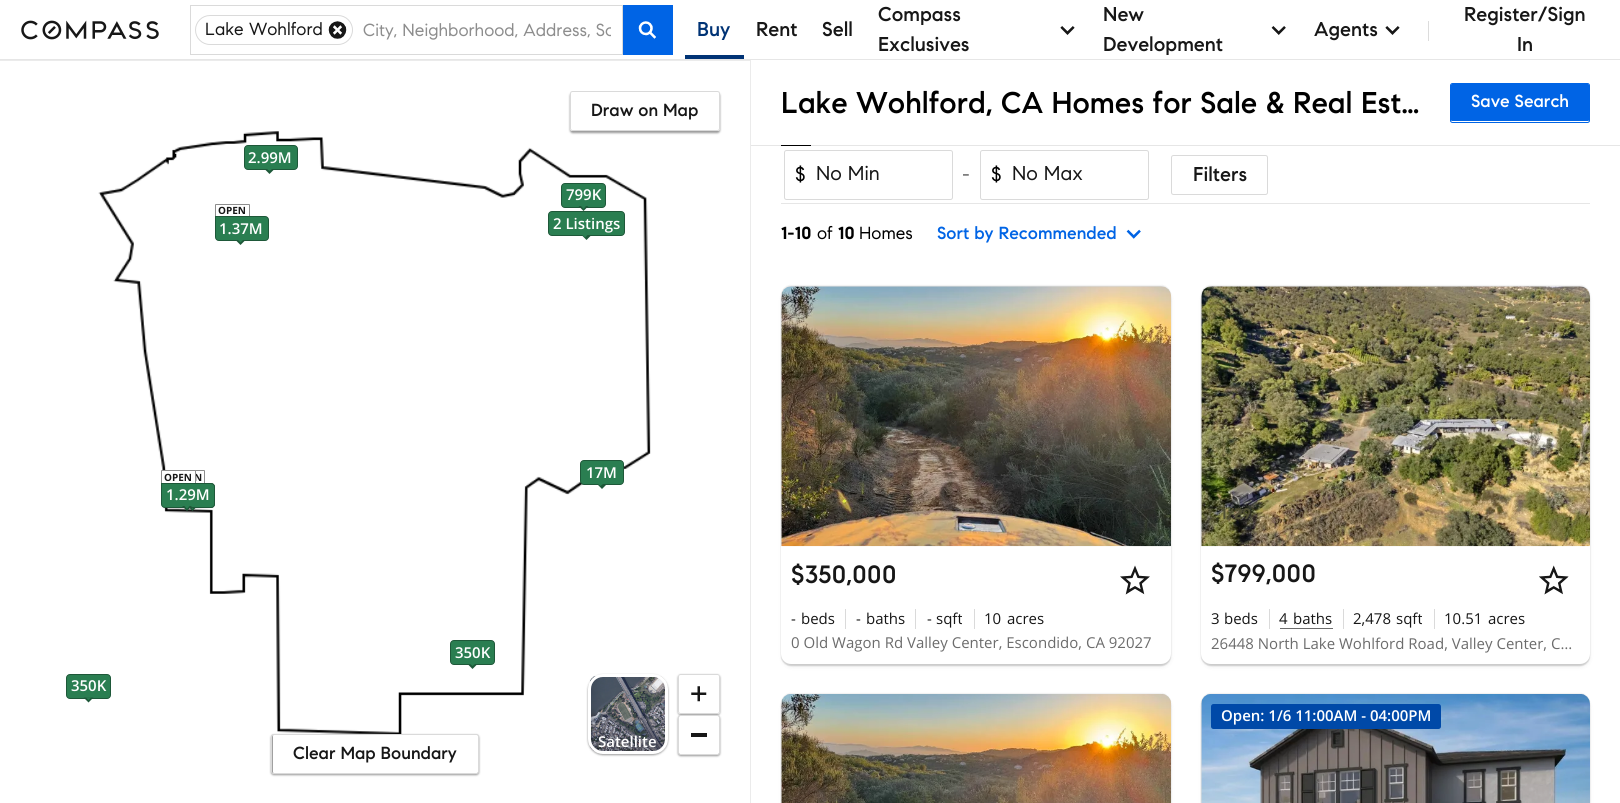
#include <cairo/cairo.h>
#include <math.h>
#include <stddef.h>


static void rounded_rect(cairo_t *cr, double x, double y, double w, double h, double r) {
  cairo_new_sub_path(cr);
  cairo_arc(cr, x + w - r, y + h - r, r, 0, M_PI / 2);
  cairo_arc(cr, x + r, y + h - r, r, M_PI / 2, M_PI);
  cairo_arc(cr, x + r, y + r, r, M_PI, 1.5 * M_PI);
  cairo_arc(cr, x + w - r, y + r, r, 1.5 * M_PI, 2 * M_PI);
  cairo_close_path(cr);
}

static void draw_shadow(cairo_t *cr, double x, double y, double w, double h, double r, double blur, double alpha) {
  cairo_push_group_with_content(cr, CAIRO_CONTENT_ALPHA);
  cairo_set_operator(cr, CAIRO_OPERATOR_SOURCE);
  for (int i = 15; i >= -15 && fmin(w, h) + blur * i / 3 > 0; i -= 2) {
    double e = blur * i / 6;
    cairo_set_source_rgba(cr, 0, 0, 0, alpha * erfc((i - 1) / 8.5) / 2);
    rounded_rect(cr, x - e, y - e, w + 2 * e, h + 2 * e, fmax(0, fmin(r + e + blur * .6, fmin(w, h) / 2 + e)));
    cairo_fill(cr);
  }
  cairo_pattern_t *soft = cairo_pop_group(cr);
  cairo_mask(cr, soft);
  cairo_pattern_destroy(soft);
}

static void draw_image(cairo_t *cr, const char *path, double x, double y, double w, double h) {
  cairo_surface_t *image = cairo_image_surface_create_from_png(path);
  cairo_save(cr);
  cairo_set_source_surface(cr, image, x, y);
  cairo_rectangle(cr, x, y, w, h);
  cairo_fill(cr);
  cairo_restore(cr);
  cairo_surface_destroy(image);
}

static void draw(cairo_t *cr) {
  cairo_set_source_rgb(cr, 1, 1, 1);
  cairo_paint(cr);
  cairo_set_source_rgb(cr, 230 / 255.0, 230 / 255.0, 230 / 255.0);
  cairo_rectangle(cr, 0, 59, 1620, 1);
  cairo_fill(cr);
  draw_image(cr, "images/1.png", 21, 20, 138, 20);
  cairo_rectangle(cr, 190.5, 5.5, 432, 49);
  cairo_set_source_rgb(cr, 218 / 255.0, 218 / 255.0, 218 / 255.0);
  cairo_set_line_width(cr, 1);
  cairo_stroke(cr);
  rounded_rect(cr, 195.5, 15.5, 157, 29, 14.5);
  cairo_stroke(cr);
  draw_image(cr, "images/2.png", 328, 21, 19, 18);
  cairo_set_source_rgb(cr, 0, 100 / 255.0, 229 / 255.0);
  cairo_rectangle(cr, 623, 5, 50, 50);
  cairo_fill(cr);
  draw_image(cr, "images/3.png", 638, 21, 18, 18);
  cairo_set_source_rgb(cr, 0, 51 / 255.0, 117 / 255.0);
  cairo_rectangle(cr, 685, 55, 59, 4);
  cairo_fill(cr);
  draw_image(cr, "images/4.png", 1060, 26, 15, 9);
  draw_image(cr, "images/5.png", 1271, 26, 15, 9);
  draw_image(cr, "images/4.png", 1385, 26, 15, 9);
  cairo_set_source_rgb(cr, 220 / 255.0, 220 / 255.0, 220 / 255.0);
  cairo_rectangle(cr, 1428, 21, 1, 20);
  cairo_fill(cr);
  cairo_set_source_rgb(cr, 235 / 255.0, 235 / 255.0, 235 / 255.0);
  cairo_new_path(cr);
  cairo_move_to(cr, 0, 60);
  cairo_line_to(cr, 751, 60);
  cairo_line_to(cr, 750, 61);
  cairo_line_to(cr, 0, 61);
  cairo_close_path(cr);
  cairo_fill(cr);
  cairo_set_source_rgba(cr, 0, 0, 0, 0.08);
  cairo_new_path(cr);
  cairo_move_to(cr, 751, 60);
  cairo_line_to(cr, 751, 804);
  cairo_line_to(cr, 750, 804);
  cairo_line_to(cr, 750, 61);
  cairo_close_path(cr);
  cairo_fill(cr);
  draw_image(cr, "images/8.png", 98, 131, 553, 603);
  cairo_save(cr);
  cairo_set_fill_rule(cr, CAIRO_FILL_RULE_EVEN_ODD);
  cairo_new_path(cr);
  cairo_move_to(cr, 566, 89);
  cairo_line_to(cr, 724, 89);
  cairo_line_to(cr, 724, 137);
  cairo_line_to(cr, 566, 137);
  cairo_close_path(cr);
  cairo_move_to(cr, 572.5, 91);
  cairo_line_to(cr, 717.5, 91);
  cairo_curve_to(cr, 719, 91, 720, 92, 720, 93.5);
  cairo_line_to(cr, 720, 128.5);
  cairo_curve_to(cr, 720, 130, 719, 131, 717.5, 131);
  cairo_line_to(cr, 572.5, 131);
  cairo_curve_to(cr, 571, 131, 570, 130, 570, 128.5);
  cairo_line_to(cr, 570, 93.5);
  cairo_curve_to(cr, 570, 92, 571, 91, 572.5, 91);
  cairo_close_path(cr);
  cairo_clip(cr);
  cairo_set_source_rgb(cr, 0, 0, 0);
  draw_shadow(cr, 570, 93, 150, 40, 2.5, 1, 0.4);
  cairo_restore(cr);
  rounded_rect(cr, 570.5, 91.5, 149, 39, 2);
  cairo_set_source_rgb(cr, 218 / 255.0, 218 / 255.0, 218 / 255.0);
  cairo_stroke(cr);
  cairo_set_source_rgb(cr, 0, 0, 0);
  draw_shadow(cr, 588, 675, 80, 80, 15, 1, 0.4);
  draw_image(cr, "images/6.png", 590, 676, 75, 76);
  rounded_rect(cr, 589.5, 675.5, 77, 77, 13.5);
  cairo_set_source_rgb(cr, 1, 1, 1);
  cairo_set_line_width(cr, 3);
  cairo_stroke(cr);
  cairo_save(cr);
  cairo_set_fill_rule(cr, CAIRO_FILL_RULE_EVEN_ODD);
  cairo_new_path(cr);
  cairo_move_to(cr, 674, 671);
  cairo_line_to(cr, 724, 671);
  cairo_line_to(cr, 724, 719);
  cairo_line_to(cr, 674, 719);
  cairo_close_path(cr);
  cairo_move_to(cr, 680.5, 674);
  cairo_line_to(cr, 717.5, 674);
  cairo_curve_to(cr, 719, 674, 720, 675, 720, 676.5);
  cairo_line_to(cr, 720, 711.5);
  cairo_curve_to(cr, 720, 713, 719, 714, 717.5, 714);
  cairo_line_to(cr, 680.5, 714);
  cairo_curve_to(cr, 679, 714, 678, 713, 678, 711.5);
  cairo_line_to(cr, 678, 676.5);
  cairo_curve_to(cr, 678, 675, 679, 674, 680.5, 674);
  cairo_close_path(cr);
  cairo_clip(cr);
  cairo_set_source_rgb(cr, 0, 0, 0);
  draw_shadow(cr, 678, 675, 42, 40, 2.5, 1, 0.4);
  cairo_restore(cr);
  rounded_rect(cr, 678.5, 674.5, 41, 39, 2);
  cairo_set_source_rgb(cr, 218 / 255.0, 218 / 255.0, 218 / 255.0);
  cairo_set_line_width(cr, 1);
  cairo_stroke(cr);
  draw_image(cr, "images/7.png", 691, 686, 16, 16);
  cairo_set_source_rgb(cr, 0, 0, 0);
  draw_shadow(cr, 678, 716, 42, 40, 2.5, 1, 0.4);
  cairo_set_source_rgb(cr, 1, 1, 1);
  rounded_rect(cr, 679, 716, 40, 38, 1);
  cairo_fill(cr);
  rounded_rect(cr, 678.5, 715.5, 41, 39, 2);
  cairo_set_source_rgb(cr, 218 / 255.0, 218 / 255.0, 218 / 255.0);
  cairo_stroke(cr);
  cairo_set_source_rgb(cr, 23 / 255.0, 23 / 255.0, 23 / 255.0);
  cairo_rectangle(cr, 691, 733, 16, 4);
  cairo_fill(cr);
  cairo_set_source_rgb(cr, 0, 0, 0);
  draw_shadow(cr, 271, 735, 208, 40, 2.5, 1, 0.4);
  cairo_set_source_rgb(cr, 1, 1, 1);
  rounded_rect(cr, 273, 735, 205, 38, 1);
  cairo_fill(cr);
  rounded_rect(cr, 271.5, 734.5, 207, 39, 2);
  cairo_set_source_rgb(cr, 218 / 255.0, 218 / 255.0, 218 / 255.0);
  cairo_stroke(cr);
  cairo_set_source_rgb(cr, 42 / 255.0, 126 / 255.0, 81 / 255.0);
  rounded_rect(cr, 244.5, 145.5, 53, 24, 3.5);
  cairo_fill_preserve(cr);
  cairo_set_source_rgb(cr, 30 / 255.0, 88 / 255.0, 57 / 255.0);
  cairo_stroke(cr);
  cairo_new_path(cr);
  cairo_move_to(cr, 264.5, 169);
  cairo_line_to(cr, 274.5, 169);
  cairo_line_to(cr, 269.5, 174);
  cairo_close_path(cr);
  cairo_fill(cr);
  cairo_set_source_rgb(cr, 42 / 255.0, 126 / 255.0, 81 / 255.0);
  cairo_new_path(cr);
  cairo_move_to(cr, 267, 169);
  cairo_line_to(cr, 272, 169);
  cairo_line_to(cr, 269.5, 171);
  cairo_close_path(cr);
  cairo_fill(cr);
  rounded_rect(cr, 561.5, 183.5, 44, 24, 3.5);
  cairo_fill_preserve(cr);
  cairo_set_source_rgb(cr, 30 / 255.0, 88 / 255.0, 57 / 255.0);
  cairo_stroke(cr);
  cairo_new_path(cr);
  cairo_move_to(cr, 578.5, 206);
  cairo_line_to(cr, 588.5, 206);
  cairo_line_to(cr, 583.5, 211);
  cairo_close_path(cr);
  cairo_fill(cr);
  cairo_set_source_rgb(cr, 42 / 255.0, 126 / 255.0, 81 / 255.0);
  cairo_new_path(cr);
  cairo_move_to(cr, 581, 206);
  cairo_line_to(cr, 586, 206);
  cairo_line_to(cr, 583.5, 209);
  cairo_close_path(cr);
  cairo_fill(cr);
  cairo_new_path(cr);
  cairo_move_to(cr, 216, 204.5);
  cairo_line_to(cr, 249, 204.5);
  cairo_curve_to(cr, 249.5, 204.5, 249.5, 204.5, 249.5, 205);
  cairo_line_to(cr, 249.5, 217.5);
  cairo_line_to(cr, 215.5, 217.5);
  cairo_line_to(cr, 215.5, 205);
  cairo_curve_to(cr, 215.5, 204.5, 215.5, 204.5, 216, 204.5);
  cairo_close_path(cr);
  cairo_set_source_rgb(cr, 141 / 255.0, 141 / 255.0, 141 / 255.0);
  cairo_stroke(cr);
  cairo_set_source_rgb(cr, 42 / 255.0, 126 / 255.0, 81 / 255.0);
  cairo_new_path(cr);
  cairo_move_to(cr, 215.5, 216.5);
  cairo_line_to(cr, 265, 216.5);
  cairo_curve_to(cr, 267, 216.5, 268.5, 218, 268.5, 220);
  cairo_line_to(cr, 268.5, 237);
  cairo_curve_to(cr, 268.5, 239, 267, 240.5, 265, 240.5);
  cairo_line_to(cr, 219, 240.5);
  cairo_curve_to(cr, 217, 240.5, 215.5, 239, 215.5, 237);
  cairo_close_path(cr);
  cairo_fill_preserve(cr);
  cairo_set_source_rgb(cr, 30 / 255.0, 88 / 255.0, 57 / 255.0);
  cairo_stroke(cr);
  cairo_new_path(cr);
  cairo_move_to(cr, 235.5, 240);
  cairo_line_to(cr, 245.5, 240);
  cairo_line_to(cr, 240.5, 245);
  cairo_close_path(cr);
  cairo_fill(cr);
  cairo_set_source_rgb(cr, 42 / 255.0, 126 / 255.0, 81 / 255.0);
  cairo_new_path(cr);
  cairo_move_to(cr, 238, 240);
  cairo_line_to(cr, 243, 240);
  cairo_line_to(cr, 240.5, 242.5);
  cairo_close_path(cr);
  cairo_fill(cr);
  rounded_rect(cr, 548.5, 211.5, 76, 24, 3.5);
  cairo_fill_preserve(cr);
  cairo_set_source_rgb(cr, 30 / 255.0, 88 / 255.0, 57 / 255.0);
  cairo_stroke(cr);
  cairo_new_path(cr);
  cairo_move_to(cr, 581.5, 235);
  cairo_line_to(cr, 591.5, 235);
  cairo_line_to(cr, 586.5, 240);
  cairo_close_path(cr);
  cairo_fill(cr);
  cairo_set_source_rgb(cr, 42 / 255.0, 126 / 255.0, 81 / 255.0);
  cairo_new_path(cr);
  cairo_move_to(cr, 582.5, 235);
  cairo_line_to(cr, 587.5, 235);
  cairo_line_to(cr, 585, 237.5);
  cairo_close_path(cr);
  cairo_fill(cr);
  rounded_rect(cr, 580.5, 460.5, 43, 24, 3.5);
  cairo_fill_preserve(cr);
  cairo_set_source_rgb(cr, 30 / 255.0, 88 / 255.0, 57 / 255.0);
  cairo_stroke(cr);
  cairo_new_path(cr);
  cairo_move_to(cr, 597, 484);
  cairo_line_to(cr, 607, 484);
  cairo_line_to(cr, 602, 489);
  cairo_close_path(cr);
  cairo_fill(cr);
  cairo_set_source_rgb(cr, 42 / 255.0, 126 / 255.0, 81 / 255.0);
  cairo_new_path(cr);
  cairo_move_to(cr, 598, 484);
  cairo_line_to(cr, 603, 484);
  cairo_line_to(cr, 600.5, 486);
  cairo_close_path(cr);
  cairo_fill(cr);
  cairo_new_path(cr);
  cairo_move_to(cr, 171, 470.5);
  cairo_line_to(cr, 204, 470.5);
  cairo_curve_to(cr, 204.5, 470.5, 204.5, 470.5, 204.5, 471);
  cairo_line_to(cr, 204.5, 483.5);
  cairo_line_to(cr, 170.5, 483.5);
  cairo_line_to(cr, 170.5, 471);
  cairo_curve_to(cr, 170.5, 470.5, 170.5, 470.5, 171, 470.5);
  cairo_close_path(cr);
  cairo_set_source_rgb(cr, 141 / 255.0, 141 / 255.0, 141 / 255.0);
  cairo_stroke(cr);
  cairo_new_path(cr);
  cairo_move_to(cr, 170.5, 483.5);
  cairo_line_to(cr, 211, 483.5);
  cairo_curve_to(cr, 213, 483.5, 214.5, 485, 214.5, 487);
  cairo_line_to(cr, 214.5, 504);
  cairo_curve_to(cr, 214.5, 506, 213, 507.5, 211, 507.5);
  cairo_line_to(cr, 174, 507.5);
  cairo_curve_to(cr, 172, 507.5, 170.5, 506, 170.5, 504);
  cairo_close_path(cr);
  cairo_set_source_rgb(cr, 30 / 255.0, 88 / 255.0, 57 / 255.0);
  cairo_stroke(cr);
  cairo_new_path(cr);
  cairo_move_to(cr, 187.5, 506);
  cairo_line_to(cr, 197.5, 506);
  cairo_line_to(cr, 192.5, 511);
  cairo_close_path(cr);
  cairo_fill(cr);
  cairo_set_source_rgb(cr, 42 / 255.0, 126 / 255.0, 81 / 255.0);
  cairo_new_path(cr);
  cairo_move_to(cr, 190, 506);
  cairo_line_to(cr, 195, 506);
  cairo_line_to(cr, 192.5, 509);
  cairo_close_path(cr);
  cairo_fill(cr);
  rounded_rect(cr, 450.5, 640.5, 44, 24, 3.5);
  cairo_fill_preserve(cr);
  cairo_set_source_rgb(cr, 30 / 255.0, 88 / 255.0, 57 / 255.0);
  cairo_stroke(cr);
  cairo_new_path(cr);
  cairo_move_to(cr, 467.5, 664);
  cairo_line_to(cr, 477.5, 664);
  cairo_line_to(cr, 472.5, 669);
  cairo_close_path(cr);
  cairo_fill(cr);
  cairo_set_source_rgb(cr, 42 / 255.0, 126 / 255.0, 81 / 255.0);
  cairo_new_path(cr);
  cairo_move_to(cr, 470, 664);
  cairo_line_to(cr, 475, 664);
  cairo_line_to(cr, 472.5, 666);
  cairo_close_path(cr);
  cairo_fill(cr);
  rounded_rect(cr, 66.5, 674.5, 44, 24, 3.5);
  cairo_fill_preserve(cr);
  cairo_set_source_rgb(cr, 30 / 255.0, 88 / 255.0, 57 / 255.0);
  cairo_stroke(cr);
  cairo_new_path(cr);
  cairo_move_to(cr, 83.5, 697.5);
  cairo_line_to(cr, 93.5, 697.5);
  cairo_line_to(cr, 88.5, 702.5);
  cairo_close_path(cr);
  cairo_fill(cr);
  cairo_set_source_rgb(cr, 42 / 255.0, 126 / 255.0, 81 / 255.0);
  cairo_new_path(cr);
  cairo_move_to(cr, 86, 697.5);
  cairo_line_to(cr, 91, 697.5);
  cairo_line_to(cr, 88.5, 700);
  cairo_close_path(cr);
  cairo_fill(cr);
  cairo_set_source_rgb(cr, 230 / 255.0, 230 / 255.0, 230 / 255.0);
  cairo_rectangle(cr, 751, 145, 869, 1);
  cairo_fill(cr);
  cairo_set_source_rgb(cr, 0, 100 / 255.0, 229 / 255.0);
  rounded_rect(cr, 1451, 84, 138, 37, 1);
  cairo_fill(cr);
  rounded_rect(cr, 1450.5, 83.5, 139, 39, 2);
  cairo_stroke(cr);
  cairo_set_source_rgb(cr, 0, 0, 0);
  cairo_rectangle(cr, 781, 145, 30, 1);
  cairo_fill(cr);
  rounded_rect(cr, 784.5, 150.5, 168, 49, 2);
  cairo_set_source_rgb(cr, 218 / 255.0, 218 / 255.0, 218 / 255.0);
  cairo_stroke(cr);
  rounded_rect(cr, 980.5, 150.5, 168, 49, 2);
  cairo_stroke(cr);
  rounded_rect(cr, 1171.5, 155.5, 96, 39, 2);
  cairo_stroke(cr);
  cairo_set_source_rgb(cr, 230 / 255.0, 230 / 255.0, 230 / 255.0);
  cairo_rectangle(cr, 781, 203, 809, 1);
  cairo_fill(cr);
  draw_image(cr, "images/9.png", 1126, 229, 15, 10);
  cairo_set_source_rgb(cr, 0, 0, 0);
  draw_shadow(cr, 781, 285, 390, 378, 10, 0.5, 0.06);
  draw_shadow(cr, 781, 289, 390, 377, 10, 0.5, 0.14);
  draw_shadow(cr, 783, 291, 387, 375, 9, 2.5, 0.1);
  cairo_set_source_rgb(cr, 1, 1, 1);
  rounded_rect(cr, 781, 286, 390, 378, 10);
  cairo_fill(cr);
  cairo_set_source_rgb(cr, 218 / 255.0, 218 / 255.0, 218 / 255.0);
  cairo_new_path(cr);
  cairo_move_to(cr, 791, 286);
  cairo_line_to(cr, 1161, 286);
  cairo_curve_to(cr, 1166.5, 286, 1171, 290.5, 1171, 296);
  cairo_line_to(cr, 1171, 546);
  cairo_line_to(cr, 781, 546);
  cairo_line_to(cr, 781, 296);
  cairo_curve_to(cr, 781, 290.5, 785.5, 286, 791, 286);
  cairo_close_path(cr);
  cairo_fill(cr);
  draw_image(cr, "images/10.png", 781, 286, 390, 261);
  draw_image(cr, "images/11.png", 1120, 565, 30, 30);
  cairo_rectangle(cr, 845, 609, 1, 20);
  cairo_fill(cr);
  cairo_rectangle(cr, 915, 609, 1, 20);
  cairo_fill(cr);
  cairo_rectangle(cr, 974, 609, 1, 20);
  cairo_fill(cr);
  cairo_set_source_rgb(cr, 0, 0, 0);
  draw_shadow(cr, 1201, 285, 389, 378, 10, 0.5, 0.06);
  draw_shadow(cr, 1201, 289, 389, 377, 10, 0.5, 0.14);
  draw_shadow(cr, 1203, 291, 386, 375, 9, 2.5, 0.1);
  cairo_set_source_rgb(cr, 1, 1, 1);
  rounded_rect(cr, 1201, 286, 389, 378, 10);
  cairo_fill(cr);
  cairo_set_source_rgb(cr, 218 / 255.0, 218 / 255.0, 218 / 255.0);
  cairo_new_path(cr);
  cairo_move_to(cr, 1211, 286);
  cairo_line_to(cr, 1580, 286);
  cairo_curve_to(cr, 1585.5, 286, 1590, 290.5, 1590, 296);
  cairo_line_to(cr, 1590, 546);
  cairo_line_to(cr, 1201, 546);
  cairo_line_to(cr, 1201, 296);
  cairo_curve_to(cr, 1201, 290.5, 1205.5, 286, 1211, 286);
  cairo_close_path(cr);
  cairo_fill(cr);
  draw_image(cr, "images/12.png", 1201, 286, 389, 261);
  draw_image(cr, "images/13.png", 1539, 565, 30, 30);
  cairo_rectangle(cr, 1269, 609, 1, 20);
  cairo_fill(cr);
  cairo_set_source_rgb(cr, 108 / 255.0, 108 / 255.0, 108 / 255.0);
  cairo_rectangle(cr, 1280, 628, 53, 1);
  cairo_fill(cr);
  cairo_set_source_rgb(cr, 218 / 255.0, 218 / 255.0, 218 / 255.0);
  cairo_rectangle(cr, 1343, 609, 1, 20);
  cairo_fill(cr);
  cairo_rectangle(cr, 1434, 609, 1, 20);
  cairo_fill(cr);
  cairo_set_source_rgb(cr, 0, 0, 0);
  draw_shadow(cr, 781, 693, 390, 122, 10, 0.5, 0.06);
  draw_shadow(cr, 781, 696, 390, 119, 10, 0.5, 0.14);
  draw_shadow(cr, 783, 699, 387, 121, 9, 2.5, 0.1);
  cairo_set_source_rgb(cr, 218 / 255.0, 218 / 255.0, 218 / 255.0);
  cairo_new_path(cr);
  cairo_move_to(cr, 791, 694);
  cairo_line_to(cr, 1161, 694);
  cairo_curve_to(cr, 1166.5, 694, 1171, 698.5, 1171, 704);
  cairo_line_to(cr, 1171, 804);
  cairo_line_to(cr, 781, 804);
  cairo_line_to(cr, 781, 704);
  cairo_curve_to(cr, 781, 698.5, 785.5, 694, 791, 694);
  cairo_close_path(cr);
  cairo_fill(cr);
  draw_image(cr, "images/14.png", 781, 694, 390, 109);
  cairo_set_source_rgb(cr, 0, 0, 0);
  draw_shadow(cr, 1201, 693, 389, 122, 10, 0.5, 0.06);
  draw_shadow(cr, 1201, 696, 389, 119, 10, 0.5, 0.14);
  draw_shadow(cr, 1203, 699, 386, 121, 9, 2.5, 0.1);
  cairo_set_source_rgb(cr, 218 / 255.0, 218 / 255.0, 218 / 255.0);
  cairo_new_path(cr);
  cairo_move_to(cr, 1211, 694);
  cairo_line_to(cr, 1580, 694);
  cairo_curve_to(cr, 1585.5, 694, 1590, 698.5, 1590, 704);
  cairo_line_to(cr, 1590, 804);
  cairo_line_to(cr, 1201, 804);
  cairo_line_to(cr, 1201, 704);
  cairo_curve_to(cr, 1201, 698.5, 1205.5, 694, 1211, 694);
  cairo_close_path(cr);
  cairo_fill(cr);
  draw_image(cr, "images/15.png", 1201, 694, 389, 109);
  cairo_set_source_rgb(cr, 0, 73 / 255.0, 168 / 255.0);
  rounded_rect(cr, 1211, 704, 230, 25, 2.5);
  cairo_fill(cr);
  cairo_select_font_face(cr, "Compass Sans", CAIRO_FONT_SLANT_NORMAL, CAIRO_FONT_WEIGHT_NORMAL);
  cairo_set_font_size(cr, 17.5);
  cairo_set_source_rgb(cr, 23 / 255.0, 23 / 255.0, 23 / 255.0);
  cairo_move_to(cr, 205, 35);
  cairo_show_text(cr, "Lake Wohlford");
  cairo_save(cr);
  cairo_rectangle(cr, 363, 20, 248, 21);
  cairo_clip(cr);
  cairo_set_source_rgb(cr, 141 / 255.0, 141 / 255.0, 141 / 255.0);
  cairo_move_to(cr, 363, 36);
  cairo_show_text(cr, "City, Neighborhood, Address, Sc");
  cairo_restore(cr);
  cairo_select_font_face(cr, "Compass Sans Medium", CAIRO_FONT_SLANT_NORMAL, CAIRO_FONT_WEIGHT_NORMAL);
  cairo_set_font_size(cr, 20);
  cairo_set_source_rgb(cr, 0, 51 / 255.0, 117 / 255.0);
  cairo_move_to(cr, 697, 36);
  cairo_show_text(cr, "Buy");
  cairo_set_source_rgb(cr, 23 / 255.0, 23 / 255.0, 23 / 255.0);
  cairo_move_to(cr, 756, 36);
  cairo_show_text(cr, "Rent");
  cairo_move_to(cr, 822, 36);
  cairo_show_text(cr, "Sell");
  cairo_move_to(cr, 878, 21);
  cairo_show_text(cr, "Compass");
  cairo_move_to(cr, 878, 51);
  cairo_show_text(cr, "Exclusives");
  cairo_move_to(cr, 1103, 21);
  cairo_show_text(cr, "New");
  cairo_move_to(cr, 1103, 51);
  cairo_show_text(cr, "Development");
  cairo_move_to(cr, 1314, 36);
  cairo_show_text(cr, "Agents");
  cairo_move_to(cr, 1464, 21);
  cairo_show_text(cr, "Register/Sign");
  cairo_move_to(cr, 1517, 51);
  cairo_show_text(cr, "In");
  cairo_set_font_size(cr, 17.5);
  cairo_move_to(cr, 591, 116);
  cairo_show_text(cr, "Draw on Map");
  cairo_select_font_face(cr, "Open Sans SemiBold", CAIRO_FONT_SLANT_NORMAL, CAIRO_FONT_WEIGHT_NORMAL);
  cairo_set_font_size(cr, 15);
  cairo_set_source_rgb(cr, 1, 1, 1);
  cairo_move_to(cr, 598, 747);
  cairo_show_text(cr, "Satellite");
  cairo_select_font_face(cr, "Compass Sans Medium", CAIRO_FONT_SLANT_NORMAL, CAIRO_FONT_WEIGHT_NORMAL);
  cairo_set_font_size(cr, 17.5);
  cairo_set_source_rgb(cr, 23 / 255.0, 23 / 255.0, 23 / 255.0);
  cairo_move_to(cr, 293, 759);
  cairo_show_text(cr, "Clear Map Boundary");
  cairo_select_font_face(cr, "Open Sans SemiBold", CAIRO_FONT_SLANT_NORMAL, CAIRO_FONT_WEIGHT_NORMAL);
  cairo_set_font_size(cr, 15);
  cairo_set_source_rgb(cr, 1, 1, 1);
  cairo_move_to(cr, 248, 163);
  cairo_show_text(cr, "2.99M");
  cairo_move_to(cr, 566, 200);
  cairo_show_text(cr, "799K");
  cairo_select_font_face(cr, "Open Sans", CAIRO_FONT_SLANT_NORMAL, CAIRO_FONT_WEIGHT_BOLD);
  cairo_set_font_size(cr, 10);
  cairo_set_source_rgb(cr, 23 / 255.0, 23 / 255.0, 23 / 255.0);
  cairo_move_to(cr, 218, 214);
  cairo_show_text(cr, "OPEN");
  cairo_select_font_face(cr, "Open Sans SemiBold", CAIRO_FONT_SLANT_NORMAL, CAIRO_FONT_WEIGHT_NORMAL);
  cairo_set_font_size(cr, 15);
  cairo_set_source_rgb(cr, 1, 1, 1);
  cairo_move_to(cr, 219, 234);
  cairo_show_text(cr, "1.37M");
  cairo_move_to(cr, 553, 229);
  cairo_show_text(cr, "2 Listings");
  cairo_move_to(cr, 586, 478);
  cairo_show_text(cr, "17M");
  cairo_select_font_face(cr, "Open Sans", CAIRO_FONT_SLANT_NORMAL, CAIRO_FONT_WEIGHT_BOLD);
  cairo_set_font_size(cr, 10);
  cairo_set_source_rgb(cr, 23 / 255.0, 23 / 255.0, 23 / 255.0);
  cairo_move_to(cr, 194, 481);
  cairo_show_text(cr, "N");
  cairo_set_source_rgb(cr, 1, 1, 1);
  cairo_new_path(cr);
  cairo_move_to(cr, 162, 470.5);
  cairo_line_to(cr, 195, 470.5);
  cairo_curve_to(cr, 195.5, 470.5, 195.5, 470.5, 195.5, 471);
  cairo_line_to(cr, 195.5, 483.5);
  cairo_line_to(cr, 161.5, 483.5);
  cairo_line_to(cr, 161.5, 471);
  cairo_curve_to(cr, 161.5, 470.5, 161.5, 470.5, 162, 470.5);
  cairo_close_path(cr);
  cairo_fill_preserve(cr);
  cairo_set_source_rgb(cr, 141 / 255.0, 141 / 255.0, 141 / 255.0);
  cairo_stroke(cr);
  cairo_set_source_rgb(cr, 42 / 255.0, 126 / 255.0, 81 / 255.0);
  cairo_new_path(cr);
  cairo_move_to(cr, 161.5, 483.5);
  cairo_line_to(cr, 211, 483.5);
  cairo_curve_to(cr, 213, 483.5, 214.5, 485, 214.5, 487);
  cairo_line_to(cr, 214.5, 504);
  cairo_curve_to(cr, 214.5, 506, 213, 507.5, 211, 507.5);
  cairo_line_to(cr, 165, 507.5);
  cairo_curve_to(cr, 163, 507.5, 161.5, 506, 161.5, 504);
  cairo_close_path(cr);
  cairo_fill_preserve(cr);
  cairo_set_source_rgb(cr, 30 / 255.0, 88 / 255.0, 57 / 255.0);
  cairo_stroke(cr);
  cairo_new_path(cr);
  cairo_move_to(cr, 182, 506);
  cairo_line_to(cr, 192, 506);
  cairo_line_to(cr, 187, 511);
  cairo_close_path(cr);
  cairo_fill(cr);
  cairo_set_source_rgb(cr, 42 / 255.0, 126 / 255.0, 81 / 255.0);
  cairo_new_path(cr);
  cairo_move_to(cr, 184.5, 506);
  cairo_line_to(cr, 189.5, 506);
  cairo_line_to(cr, 187, 509);
  cairo_close_path(cr);
  cairo_fill(cr);
  cairo_select_font_face(cr, "Open Sans SemiBold", CAIRO_FONT_SLANT_NORMAL, CAIRO_FONT_WEIGHT_NORMAL);
  cairo_set_font_size(cr, 15);
  cairo_set_source_rgb(cr, 1, 1, 1);
  cairo_move_to(cr, 166, 500);
  cairo_show_text(cr, "1.29M");
  cairo_select_font_face(cr, "Open Sans", CAIRO_FONT_SLANT_NORMAL, CAIRO_FONT_WEIGHT_BOLD);
  cairo_set_font_size(cr, 10);
  cairo_set_source_rgb(cr, 23 / 255.0, 23 / 255.0, 23 / 255.0);
  cairo_move_to(cr, 164, 481);
  cairo_show_text(cr, "OPEN");
  cairo_select_font_face(cr, "Open Sans SemiBold", CAIRO_FONT_SLANT_NORMAL, CAIRO_FONT_WEIGHT_NORMAL);
  cairo_set_font_size(cr, 15);
  cairo_set_source_rgb(cr, 1, 1, 1);
  cairo_move_to(cr, 455, 658);
  cairo_show_text(cr, "350K");
  cairo_move_to(cr, 71, 691);
  cairo_show_text(cr, "350K");
  cairo_select_font_face(cr, "Compass Sans Medium", CAIRO_FONT_SLANT_NORMAL, CAIRO_FONT_WEIGHT_NORMAL);
  cairo_set_font_size(cr, 30);
  cairo_set_source_rgb(cr, 0, 0, 0);
  cairo_move_to(cr, 781, 113);
  cairo_show_text(cr, "Lake Wohlford, CA Homes for Sale & Real Est…");
  cairo_set_font_size(cr, 17.5);
  cairo_set_source_rgb(cr, 1, 1, 1);
  cairo_move_to(cr, 1471, 107);
  cairo_show_text(cr, "Save Search");
  cairo_select_font_face(cr, "Compass Sans", CAIRO_FONT_SLANT_NORMAL, CAIRO_FONT_WEIGHT_NORMAL);
  cairo_set_font_size(cr, 20);
  cairo_set_source_rgb(cr, 0, 0, 0);
  cairo_move_to(cr, 795, 181);
  cairo_show_text(cr, "$");
  cairo_set_source_rgb(cr, 23 / 255.0, 23 / 255.0, 23 / 255.0);
  cairo_move_to(cr, 816, 180);
  cairo_show_text(cr, "No Min");
  cairo_set_source_rgb(cr, 108 / 255.0, 108 / 255.0, 108 / 255.0);
  cairo_move_to(cr, 962, 181);
  cairo_show_text(cr, "-");
  cairo_set_source_rgb(cr, 0, 0, 0);
  cairo_move_to(cr, 991, 181);
  cairo_show_text(cr, "$");
  cairo_set_source_rgb(cr, 23 / 255.0, 23 / 255.0, 23 / 255.0);
  cairo_move_to(cr, 1012, 180);
  cairo_show_text(cr, "No Max");
  cairo_select_font_face(cr, "Compass Sans Medium", CAIRO_FONT_SLANT_NORMAL, CAIRO_FONT_WEIGHT_NORMAL);
  cairo_move_to(cr, 1193, 181);
  cairo_show_text(cr, "Filters");
  cairo_select_font_face(cr, "Compass Sans", CAIRO_FONT_SLANT_NORMAL, CAIRO_FONT_WEIGHT_BOLD);
  cairo_set_font_size(cr, 17.5);
  cairo_set_source_rgb(cr, 0, 0, 0);
  cairo_move_to(cr, 781, 239);
  cairo_show_text(cr, "1-10");
  cairo_select_font_face(cr, "Compass Sans", CAIRO_FONT_SLANT_NORMAL, CAIRO_FONT_WEIGHT_NORMAL);
  cairo_move_to(cr, 817, 239);
  cairo_show_text(cr, "of");
  cairo_select_font_face(cr, "Compass Sans", CAIRO_FONT_SLANT_NORMAL, CAIRO_FONT_WEIGHT_BOLD);
  cairo_move_to(cr, 838, 239);
  cairo_show_text(cr, "10");
  cairo_select_font_face(cr, "Compass Sans", CAIRO_FONT_SLANT_NORMAL, CAIRO_FONT_WEIGHT_NORMAL);
  cairo_move_to(cr, 859, 239);
  cairo_show_text(cr, "Homes");
  cairo_select_font_face(cr, "Compass Sans Medium", CAIRO_FONT_SLANT_NORMAL, CAIRO_FONT_WEIGHT_NORMAL);
  cairo_set_source_rgb(cr, 0, 100 / 255.0, 229 / 255.0);
  cairo_move_to(cr, 937, 239);
  cairo_show_text(cr, "Sort by Recommended");
  cairo_set_font_size(cr, 25);
  cairo_set_source_rgb(cr, 23 / 255.0, 23 / 255.0, 23 / 255.0);
  cairo_move_to(cr, 791, 583);
  cairo_show_text(cr, "$350,000");
  cairo_select_font_face(cr, "Open Sans", CAIRO_FONT_SLANT_NORMAL, CAIRO_FONT_WEIGHT_NORMAL);
  cairo_set_font_size(cr, 15);
  cairo_move_to(cr, 791, 624);
  cairo_show_text(cr, "-");
  cairo_move_to(cr, 801, 624);
  cairo_show_text(cr, "beds");
  cairo_move_to(cr, 856, 624);
  cairo_show_text(cr, "-");
  cairo_move_to(cr, 866, 624);
  cairo_show_text(cr, "baths");
  cairo_move_to(cr, 927, 624);
  cairo_show_text(cr, "-");
  cairo_move_to(cr, 936, 624);
  cairo_show_text(cr, "sqft");
  cairo_move_to(cr, 984, 624);
  cairo_show_text(cr, "10");
  cairo_move_to(cr, 1007, 624);
  cairo_show_text(cr, "acres");
  cairo_set_source_rgb(cr, 108 / 255.0, 108 / 255.0, 108 / 255.0);
  cairo_move_to(cr, 791, 648);
  cairo_show_text(cr, "0 Old Wagon Rd Valley Center, Escondido, CA 92027");
  cairo_select_font_face(cr, "Compass Sans", CAIRO_FONT_SLANT_NORMAL, CAIRO_FONT_WEIGHT_BOLD);
  cairo_set_source_rgb(cr, 80 / 255.0, 79 / 255.0, 52 / 255.0);
  cairo_move_to(cr, 1221, 519);
  cairo_show_text(cr, "1/29");
  cairo_select_font_face(cr, "Compass Sans Medium", CAIRO_FONT_SLANT_NORMAL, CAIRO_FONT_WEIGHT_NORMAL);
  cairo_set_font_size(cr, 25);
  cairo_set_source_rgb(cr, 23 / 255.0, 23 / 255.0, 23 / 255.0);
  cairo_move_to(cr, 1211, 582);
  cairo_show_text(cr, "$799,000");
  cairo_select_font_face(cr, "Open Sans", CAIRO_FONT_SLANT_NORMAL, CAIRO_FONT_WEIGHT_NORMAL);
  cairo_set_font_size(cr, 15);
  cairo_move_to(cr, 1211, 624);
  cairo_show_text(cr, "3");
  cairo_move_to(cr, 1224, 624);
  cairo_show_text(cr, "beds");
  cairo_move_to(cr, 1279, 624);
  cairo_show_text(cr, "4");
  cairo_move_to(cr, 1293, 624);
  cairo_show_text(cr, "baths");
  cairo_move_to(cr, 1353, 624);
  cairo_show_text(cr, "2,478");
  cairo_move_to(cr, 1396, 624);
  cairo_show_text(cr, "sqft");
  cairo_move_to(cr, 1444, 624);
  cairo_show_text(cr, "10.51");
  cairo_move_to(cr, 1488, 624);
  cairo_show_text(cr, "acres");
  cairo_set_source_rgb(cr, 108 / 255.0, 108 / 255.0, 108 / 255.0);
  cairo_move_to(cr, 1211, 649);
  cairo_show_text(cr, "26448 North Lake Wohlford Road, Valley Center, C…");
  cairo_select_font_face(cr, "Open Sans SemiBold", CAIRO_FONT_SLANT_NORMAL, CAIRO_FONT_WEIGHT_NORMAL);
  cairo_set_source_rgb(cr, 1, 1, 1);
  cairo_move_to(cr, 1221, 721);
  cairo_show_text(cr, "Open: 1/6 11:00AM - 04:00PM");
}

int main(void) {
  cairo_surface_t *surface = cairo_image_surface_create(CAIRO_FORMAT_RGB24, 1620, 803);
  cairo_t *cr = cairo_create(surface);
  cairo_font_options_t *options = cairo_font_options_create();
  cairo_font_options_set_hint_metrics(options, CAIRO_HINT_METRICS_OFF);
  cairo_font_options_set_hint_style(options, CAIRO_HINT_STYLE_NONE);
  cairo_set_font_options(cr, options);
  cairo_set_miter_limit(cr, 4);
  draw(cr);
  cairo_surface_write_to_png(surface, "out.png");
  cairo_font_options_destroy(options);
  cairo_destroy(cr);
  cairo_surface_destroy(surface);
  return 0;
}
